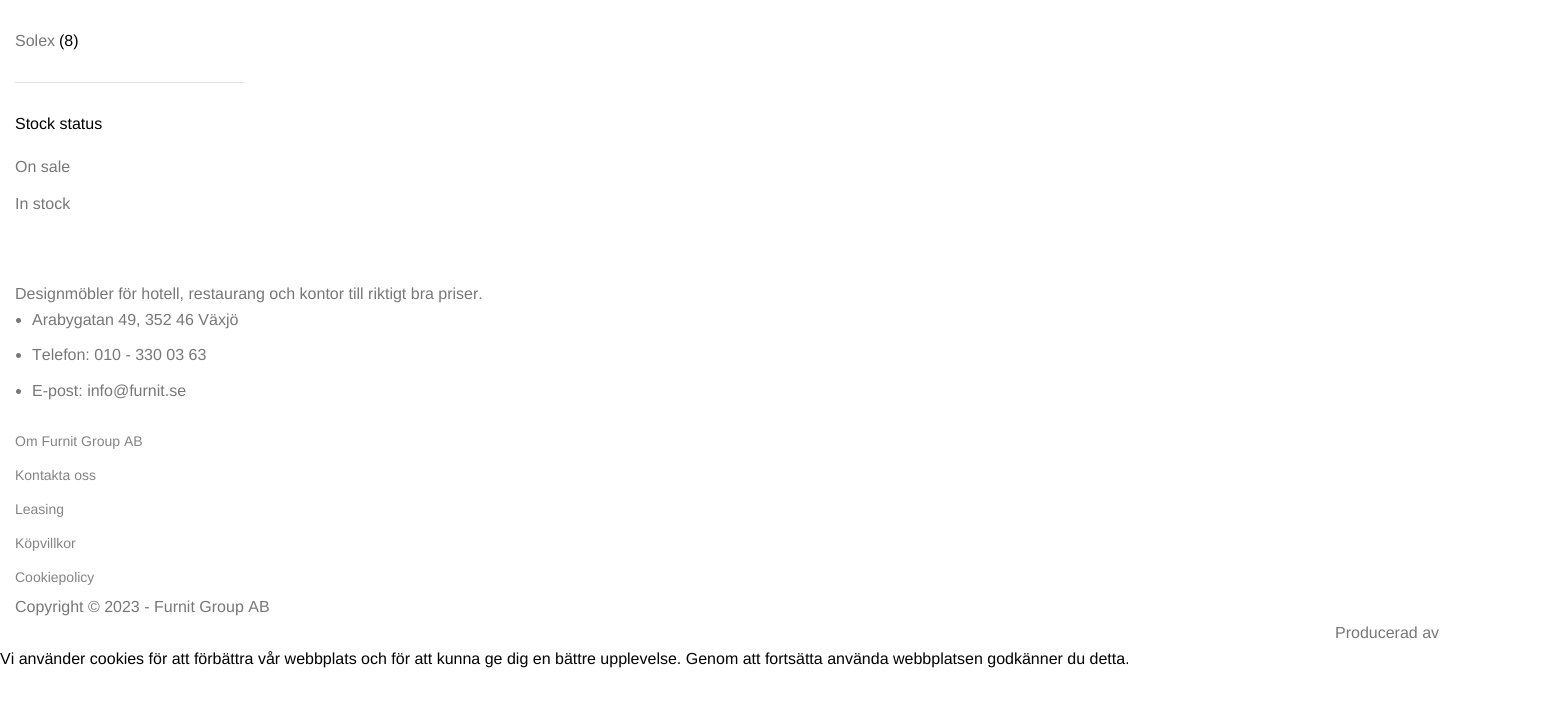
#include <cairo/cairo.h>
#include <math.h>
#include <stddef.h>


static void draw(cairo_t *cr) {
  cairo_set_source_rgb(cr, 1, 1, 1);
  cairo_paint(cr);
  cairo_set_source_rgb(cr, 228 / 255.0, 228 / 255.0, 228 / 255.0);
  cairo_rectangle(cr, 15, 82, 230, 1);
  cairo_fill(cr);
  cairo_set_source_rgb(cr, 119 / 255.0, 119 / 255.0, 119 / 255.0);
  cairo_arc(cr, 18.5, 320.5, 2.5, 0, 2 * M_PI);
  cairo_fill(cr);
  cairo_arc(cr, 18.5, 355.5, 2.5, 0, 2 * M_PI);
  cairo_fill(cr);
  cairo_arc(cr, 18.5, 391.5, 2.5, 0, 2 * M_PI);
  cairo_fill(cr);
  cairo_select_font_face(cr, "Liberation Sans", CAIRO_FONT_SLANT_NORMAL, CAIRO_FONT_WEIGHT_NORMAL);
  cairo_set_font_size(cr, 16);
  cairo_move_to(cr, 15, 46);
  cairo_show_text(cr, "Solex");
  cairo_set_source_rgb(cr, 0, 0, 0);
  cairo_move_to(cr, 59, 46);
  cairo_show_text(cr, "(8)");
  cairo_move_to(cr, 15, 129);
  cairo_show_text(cr, "Stock status");
  cairo_set_source_rgb(cr, 119 / 255.0, 119 / 255.0, 119 / 255.0);
  cairo_move_to(cr, 15, 172);
  cairo_show_text(cr, "On sale");
  cairo_move_to(cr, 15, 209);
  cairo_show_text(cr, "In stock");
  cairo_move_to(cr, 15, 299);
  cairo_show_text(cr, "Designmöbler för hotell, restaurang och kontor till riktigt bra priser.");
  cairo_move_to(cr, 32, 325);
  cairo_show_text(cr, "Arabygatan 49, 352 46 Växjö");
  cairo_move_to(cr, 32, 360);
  cairo_show_text(cr, "Telefon: 010 - 330 03 63");
  cairo_move_to(cr, 32, 396);
  cairo_show_text(cr, "E-post: info@furnit.se");
  cairo_set_font_size(cr, 14);
  cairo_set_source_rgb(cr, 132 / 255.0, 132 / 255.0, 132 / 255.0);
  cairo_move_to(cr, 15, 446);
  cairo_show_text(cr, "Om Furnit Group AB");
  cairo_move_to(cr, 15, 480);
  cairo_show_text(cr, "Kontakta oss");
  cairo_move_to(cr, 15, 514);
  cairo_show_text(cr, "Leasing");
  cairo_move_to(cr, 15, 548);
  cairo_show_text(cr, "Köpvillkor");
  cairo_move_to(cr, 15, 582);
  cairo_show_text(cr, "Cookiepolicy");
  cairo_set_font_size(cr, 16);
  cairo_set_source_rgb(cr, 119 / 255.0, 119 / 255.0, 119 / 255.0);
  cairo_move_to(cr, 15, 612);
  cairo_show_text(cr, "Copyright © 2023 - Furnit Group AB");
  cairo_move_to(cr, 1335, 638);
  cairo_show_text(cr, "Producerad av");
  cairo_set_source_rgb(cr, 0, 0, 0);
  cairo_move_to(cr, 0, 664);
  cairo_show_text(cr, "Vi använder cookies för att förbättra vår webbplats och för att kunna ge dig en bättre upplevelse. Genom att fortsätta använda webbplatsen godkänner du detta.");
}

int main(void) {
  cairo_surface_t *surface = cairo_image_surface_create(CAIRO_FORMAT_RGB24, 1561, 707);
  cairo_t *cr = cairo_create(surface);
  cairo_font_options_t *options = cairo_font_options_create();
  cairo_font_options_set_hint_metrics(options, CAIRO_HINT_METRICS_OFF);
  cairo_font_options_set_hint_style(options, CAIRO_HINT_STYLE_NONE);
  cairo_set_font_options(cr, options);
  cairo_set_miter_limit(cr, 4);
  draw(cr);
  cairo_surface_write_to_png(surface, "out.png");
  cairo_font_options_destroy(options);
  cairo_destroy(cr);
  cairo_surface_destroy(surface);
  return 0;
}
